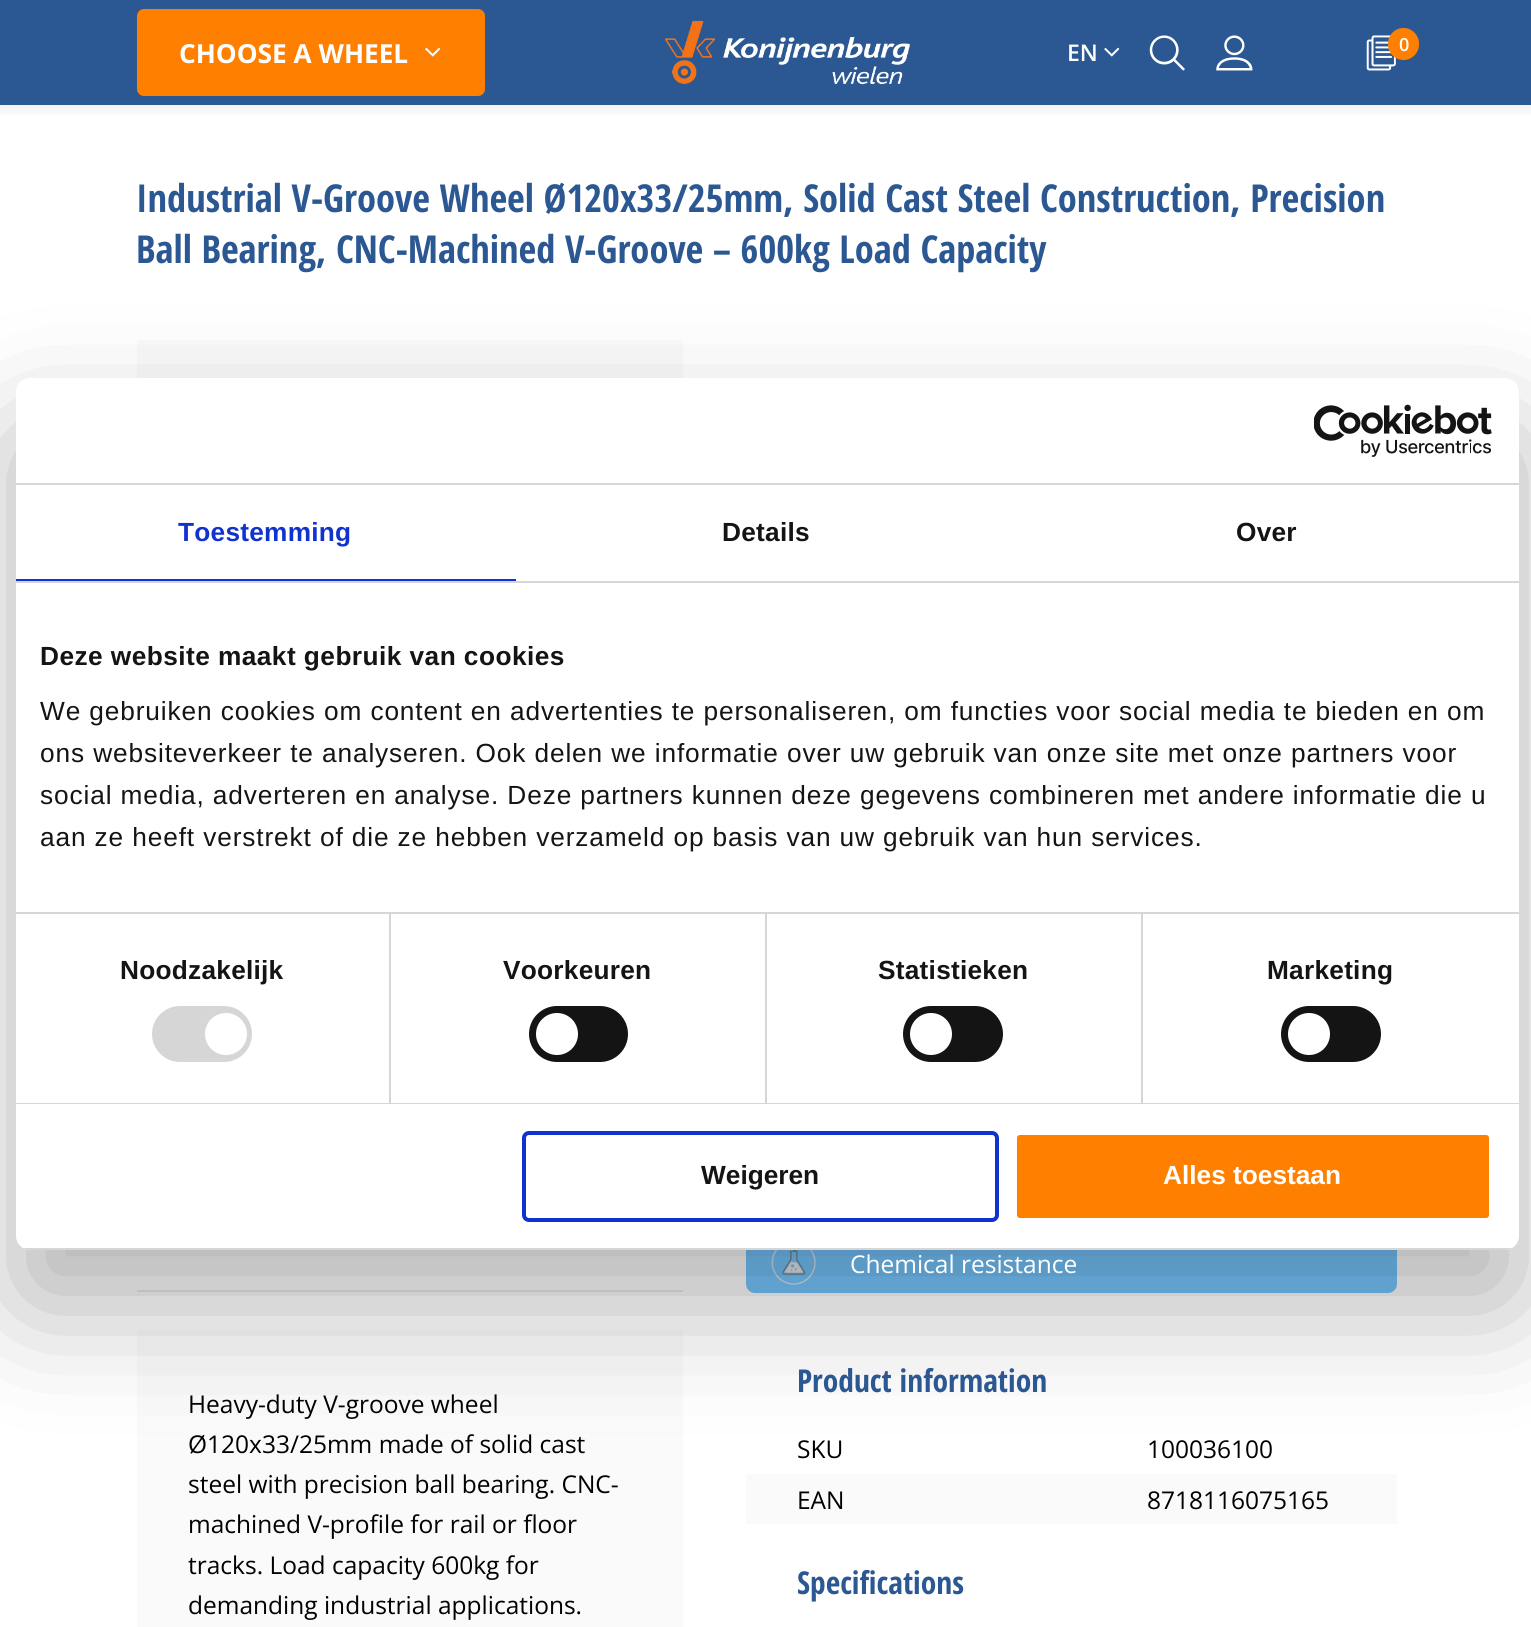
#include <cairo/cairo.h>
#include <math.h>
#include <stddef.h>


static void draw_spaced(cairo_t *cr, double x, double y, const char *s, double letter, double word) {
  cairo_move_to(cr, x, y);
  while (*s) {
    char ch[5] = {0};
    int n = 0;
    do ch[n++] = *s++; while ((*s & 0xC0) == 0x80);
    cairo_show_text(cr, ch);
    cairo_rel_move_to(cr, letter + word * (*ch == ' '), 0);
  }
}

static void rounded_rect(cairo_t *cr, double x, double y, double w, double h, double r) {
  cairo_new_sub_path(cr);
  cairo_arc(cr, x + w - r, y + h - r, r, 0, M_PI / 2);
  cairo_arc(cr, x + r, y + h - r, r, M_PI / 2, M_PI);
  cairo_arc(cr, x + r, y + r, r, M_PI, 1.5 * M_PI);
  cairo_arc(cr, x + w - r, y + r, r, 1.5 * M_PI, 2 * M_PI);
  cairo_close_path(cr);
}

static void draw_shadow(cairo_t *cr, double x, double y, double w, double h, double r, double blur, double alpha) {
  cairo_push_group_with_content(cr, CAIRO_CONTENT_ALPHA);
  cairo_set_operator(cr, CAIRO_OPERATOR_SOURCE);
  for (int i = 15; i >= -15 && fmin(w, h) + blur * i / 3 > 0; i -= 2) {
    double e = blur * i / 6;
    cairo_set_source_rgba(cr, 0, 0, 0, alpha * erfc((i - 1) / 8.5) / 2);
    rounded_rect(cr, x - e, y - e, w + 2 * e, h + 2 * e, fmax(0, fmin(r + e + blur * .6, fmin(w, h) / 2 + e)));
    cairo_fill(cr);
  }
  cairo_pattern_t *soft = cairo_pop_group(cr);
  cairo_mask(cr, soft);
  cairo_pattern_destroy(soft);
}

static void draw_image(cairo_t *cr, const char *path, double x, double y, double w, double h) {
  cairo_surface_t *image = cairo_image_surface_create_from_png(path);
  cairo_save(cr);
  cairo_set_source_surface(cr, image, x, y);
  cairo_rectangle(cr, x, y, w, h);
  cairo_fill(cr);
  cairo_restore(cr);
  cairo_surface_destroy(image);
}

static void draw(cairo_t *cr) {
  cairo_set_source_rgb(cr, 1, 1, 1);
  cairo_paint(cr);
  cairo_set_source_rgb(cr, 250 / 255.0, 250 / 255.0, 250 / 255.0);
  cairo_rectangle(cr, 137, 340, 546, 38);
  cairo_fill(cr);
  cairo_set_source_rgb(cr, 0, 0, 0);
  draw_shadow(cr, -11, 7, 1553, 105, 0, 3.5, 0.05);
  cairo_set_source_rgb(cr, 43 / 255.0, 88 / 255.0, 146 / 255.0);
  cairo_rectangle(cr, 0, 0, 1531, 105);
  cairo_fill(cr);
  draw_image(cr, "images/1.png", 665, 20, 245, 65);
  cairo_set_source_rgb(cr, 1, 127 / 255.0, 0);
  rounded_rect(cr, 137, 9, 348, 87, 7);
  cairo_fill(cr);
  draw_image(cr, "images/2.png", 425, 47, 16, 10);
  draw_image(cr, "images/3.png", 1104, 47, 16, 10);
  draw_image(cr, "images/4.png", 1149, 35, 36, 36);
  draw_image(cr, "images/5.png", 1216, 35, 37, 36);
  draw_image(cr, "images/6.png", 1366, 35, 30, 36);
  rounded_rect(cr, 1388, 28, 31, 32, 15.5);
  cairo_fill(cr);
  cairo_set_source_rgb(cr, 118 / 255.0, 198 / 255.0, 1);
  rounded_rect(cr, 746, 1232, 651, 61, 9);
  cairo_fill(cr);
  draw_image(cr, "images/7.png", 771, 1250, 45, 35);
  cairo_set_source_rgb(cr, 235 / 255.0, 235 / 255.0, 235 / 255.0);
  cairo_rectangle(cr, 137, 1290, 546, 2);
  cairo_fill(cr);
  cairo_set_source_rgb(cr, 250 / 255.0, 250 / 255.0, 250 / 255.0);
  cairo_rectangle(cr, 137, 1330, 546, 297);
  cairo_fill(cr);
  cairo_rectangle(cr, 746, 1474, 651, 50);
  cairo_fill(cr);
  cairo_set_source_rgb(cr, 0, 0, 0);
  draw_shadow(cr, 16, 434, 1503, 872, 14, 59.5, 0.3);
  cairo_set_source_rgb(cr, 1, 1, 1);
  rounded_rect(cr, 16, 378, 1503, 872, 14);
  cairo_fill(cr);
  cairo_set_source_rgb(cr, 214 / 255.0, 214 / 255.0, 214 / 255.0);
  cairo_rectangle(cr, 16, 483, 1503, 2);
  cairo_fill(cr);
  draw_image(cr, "images/8.png", 1314, 404, 178, 53);
  cairo_rectangle(cr, 16, 581, 1503, 2);
  cairo_fill(cr);
  cairo_set_source_rgb(cr, 16 / 255.0, 50 / 255.0, 207 / 255.0);
  cairo_rectangle(cr, 16, 579, 500, 2);
  cairo_fill(cr);
  cairo_set_source_rgb(cr, 214 / 255.0, 214 / 255.0, 214 / 255.0);
  cairo_rectangle(cr, 16, 912, 1503, 2);
  cairo_fill(cr);
  cairo_rectangle(cr, 16, 1103, 1503, 1);
  cairo_fill(cr);
  cairo_rectangle(cr, 389, 914, 2, 189);
  cairo_fill(cr);
  rounded_rect(cr, 152, 1006, 100, 56, 28);
  cairo_fill(cr);
  cairo_set_source_rgb(cr, 1, 1, 1);
  cairo_arc(cr, 226, 1034, 21, 0, 2 * M_PI);
  cairo_fill(cr);
  cairo_set_source_rgb(cr, 214 / 255.0, 214 / 255.0, 214 / 255.0);
  cairo_rectangle(cr, 765, 914, 2, 189);
  cairo_fill(cr);
  cairo_set_source_rgb(cr, 20 / 255.0, 20 / 255.0, 20 / 255.0);
  rounded_rect(cr, 529, 1006, 99, 56, 28);
  cairo_fill(cr);
  cairo_set_source_rgb(cr, 1, 1, 1);
  cairo_arc(cr, 557, 1034, 21, 0, 2 * M_PI);
  cairo_fill(cr);
  cairo_set_source_rgb(cr, 214 / 255.0, 214 / 255.0, 214 / 255.0);
  cairo_rectangle(cr, 1141, 914, 2, 189);
  cairo_fill(cr);
  cairo_set_source_rgb(cr, 20 / 255.0, 20 / 255.0, 20 / 255.0);
  rounded_rect(cr, 903, 1006, 100, 56, 28);
  cairo_fill(cr);
  cairo_set_source_rgb(cr, 1, 1, 1);
  cairo_arc(cr, 931, 1034, 21, 0, 2 * M_PI);
  cairo_fill(cr);
  cairo_set_source_rgb(cr, 20 / 255.0, 20 / 255.0, 20 / 255.0);
  rounded_rect(cr, 1281, 1006, 100, 56, 28);
  cairo_fill(cr);
  cairo_set_source_rgb(cr, 1, 1, 1);
  cairo_arc(cr, 1309, 1034, 21, 0, 2 * M_PI);
  cairo_fill(cr);
  cairo_save(cr);
  rounded_rect(cr, 16, 378, 1503, 872, 14);
  cairo_clip(cr);
  cairo_set_source_rgb(cr, 214 / 255.0, 214 / 255.0, 214 / 255.0);
  cairo_rectangle(cr, 16, 1248, 1503, 2);
  cairo_fill(cr);
  cairo_restore(cr);
  rounded_rect(cr, 524, 1133, 473, 87, 5);
  cairo_set_source_rgb(cr, 16 / 255.0, 50 / 255.0, 207 / 255.0);
  cairo_set_line_width(cr, 4);
  cairo_stroke(cr);
  cairo_set_source_rgb(cr, 1, 127 / 255.0, 0);
  rounded_rect(cr, 1015, 1133, 476, 87, 5);
  cairo_fill_preserve(cr);
  cairo_set_source_rgb(cr, 1, 1, 1);
  cairo_stroke(cr);
  cairo_select_font_face(cr, "Open Sans", CAIRO_FONT_SLANT_NORMAL, CAIRO_FONT_WEIGHT_BOLD);
  cairo_set_font_size(cr, 26.25);
  cairo_move_to(cr, 179, 63);
  cairo_show_text(cr, "CHOOSE A WHEEL");
  cairo_select_font_face(cr, "Open Sans SemiBold", CAIRO_FONT_SLANT_NORMAL, CAIRO_FONT_WEIGHT_NORMAL);
  cairo_set_font_size(cr, 23);
  cairo_move_to(cr, 1067, 61);
  cairo_show_text(cr, "EN");
  cairo_set_font_size(cr, 18);
  cairo_move_to(cr, 1399, 51);
  cairo_show_text(cr, "0");
  cairo_select_font_face(cr, "Open Sans Condensed", CAIRO_FONT_SLANT_NORMAL, CAIRO_FONT_WEIGHT_BOLD);
  cairo_set_font_size(cr, 38.5);
  cairo_set_source_rgb(cr, 43 / 255.0, 88 / 255.0, 146 / 255.0);
  cairo_move_to(cr, 136, 212);
  cairo_show_text(cr, "Industrial V-Groove Wheel Ø120x33/25mm, Solid Cast Steel Construction, Precision");
  cairo_move_to(cr, 136, 263);
  cairo_show_text(cr, "Ball Bearing, CNC-Machined V-Groove – 600kg Load Capacity");
  cairo_select_font_face(cr, "Open Sans", CAIRO_FONT_SLANT_NORMAL, CAIRO_FONT_WEIGHT_NORMAL);
  cairo_set_font_size(cr, 24.5);
  cairo_set_source_rgb(cr, 1, 1, 1);
  cairo_move_to(cr, 850, 1273);
  cairo_show_text(cr, "Chemical resistance");
  cairo_set_source_rgb(cr, 0, 0, 0);
  cairo_move_to(cr, 188, 1413);
  cairo_show_text(cr, "Heavy-duty V-groove wheel");
  cairo_move_to(cr, 188, 1453);
  cairo_show_text(cr, "Ø120x33/25mm made of solid cast");
  cairo_move_to(cr, 188, 1493);
  cairo_show_text(cr, "steel with precision ball bearing. CNC-");
  cairo_move_to(cr, 188, 1533);
  cairo_show_text(cr, "machined V-profile for rail or floor");
  cairo_move_to(cr, 188, 1574);
  cairo_show_text(cr, "tracks. Load capacity 600kg for");
  cairo_move_to(cr, 188, 1614);
  cairo_show_text(cr, "demanding industrial applications.");
  cairo_select_font_face(cr, "Open Sans Condensed", CAIRO_FONT_SLANT_NORMAL, CAIRO_FONT_WEIGHT_BOLD);
  cairo_set_font_size(cr, 31.5);
  cairo_set_source_rgb(cr, 43 / 255.0, 88 / 255.0, 146 / 255.0);
  cairo_move_to(cr, 797, 1392);
  cairo_show_text(cr, "Product information");
  cairo_select_font_face(cr, "Open Sans", CAIRO_FONT_SLANT_NORMAL, CAIRO_FONT_WEIGHT_NORMAL);
  cairo_set_font_size(cr, 24.5);
  cairo_set_source_rgb(cr, 0, 0, 0);
  cairo_move_to(cr, 797, 1458);
  cairo_show_text(cr, "SKU");
  cairo_move_to(cr, 1147, 1458);
  cairo_show_text(cr, "100036100");
  cairo_move_to(cr, 797, 1509);
  cairo_show_text(cr, "EAN");
  cairo_move_to(cr, 1147, 1509);
  cairo_show_text(cr, "8718116075165");
  cairo_select_font_face(cr, "Open Sans Condensed", CAIRO_FONT_SLANT_NORMAL, CAIRO_FONT_WEIGHT_BOLD);
  cairo_set_font_size(cr, 31.5);
  cairo_set_source_rgb(cr, 43 / 255.0, 88 / 255.0, 146 / 255.0);
  cairo_move_to(cr, 797, 1594);
  cairo_show_text(cr, "Specifications");
  cairo_select_font_face(cr, "Liberation Sans", CAIRO_FONT_SLANT_NORMAL, CAIRO_FONT_WEIGHT_BOLD);
  cairo_set_font_size(cr, 26.25);
  cairo_set_source_rgb(cr, 16 / 255.0, 50 / 255.0, 207 / 255.0);
  draw_spaced(cr, 178, 541, "Toestemming", 0.25, 0);
  cairo_set_source_rgb(cr, 20 / 255.0, 20 / 255.0, 20 / 255.0);
  draw_spaced(cr, 722, 541, "Details", 0.25, 0);
  draw_spaced(cr, 1236, 541, "Over", 0.25, 0);
  draw_spaced(cr, 40, 665, "Deze website maakt gebruik van cookies", 0.45, 0);
  cairo_select_font_face(cr, "Liberation Sans", CAIRO_FONT_SLANT_NORMAL, CAIRO_FONT_WEIGHT_NORMAL);
  draw_spaced(cr, 40, 720, "We gebruiken cookies om content en advertenties te personaliseren, om functies voor social media te bieden en om", 0.88, 0);
  draw_spaced(cr, 40, 762, "ons websiteverkeer te analyseren. Ook delen we informatie over uw gebruik van onze site met onze partners voor", 0.88, 0);
  draw_spaced(cr, 40, 804, "social media, adverteren en analyse. Deze partners kunnen deze gegevens combineren met andere informatie die u", 0.88, 0);
  draw_spaced(cr, 40, 846, "aan ze heeft verstrekt of die ze hebben verzameld op basis van uw gebruik van hun services.", 0.88, 0);
  cairo_select_font_face(cr, "Liberation Sans", CAIRO_FONT_SLANT_NORMAL, CAIRO_FONT_WEIGHT_BOLD);
  draw_spaced(cr, 120, 979, "Noodzakelijk", 0.25, 0);
  draw_spaced(cr, 503, 979, "Voorkeuren", 0.25, 0);
  draw_spaced(cr, 878, 979, "Statistieken", 0.25, 0);
  draw_spaced(cr, 1267, 979, "Marketing", 0.25, 0);
  cairo_move_to(cr, 701, 1184);
  cairo_show_text(cr, "Weigeren");
  cairo_set_source_rgb(cr, 1, 1, 1);
  cairo_move_to(cr, 1163, 1184);
  cairo_show_text(cr, "Alles toestaan");
}

int main(void) {
  cairo_surface_t *surface = cairo_image_surface_create(CAIRO_FORMAT_RGB24, 1531, 1627);
  cairo_t *cr = cairo_create(surface);
  cairo_font_options_t *options = cairo_font_options_create();
  cairo_font_options_set_hint_metrics(options, CAIRO_HINT_METRICS_OFF);
  cairo_font_options_set_hint_style(options, CAIRO_HINT_STYLE_NONE);
  cairo_set_font_options(cr, options);
  cairo_set_miter_limit(cr, 4);
  draw(cr);
  cairo_surface_write_to_png(surface, "out.png");
  cairo_font_options_destroy(options);
  cairo_destroy(cr);
  cairo_surface_destroy(surface);
  return 0;
}
